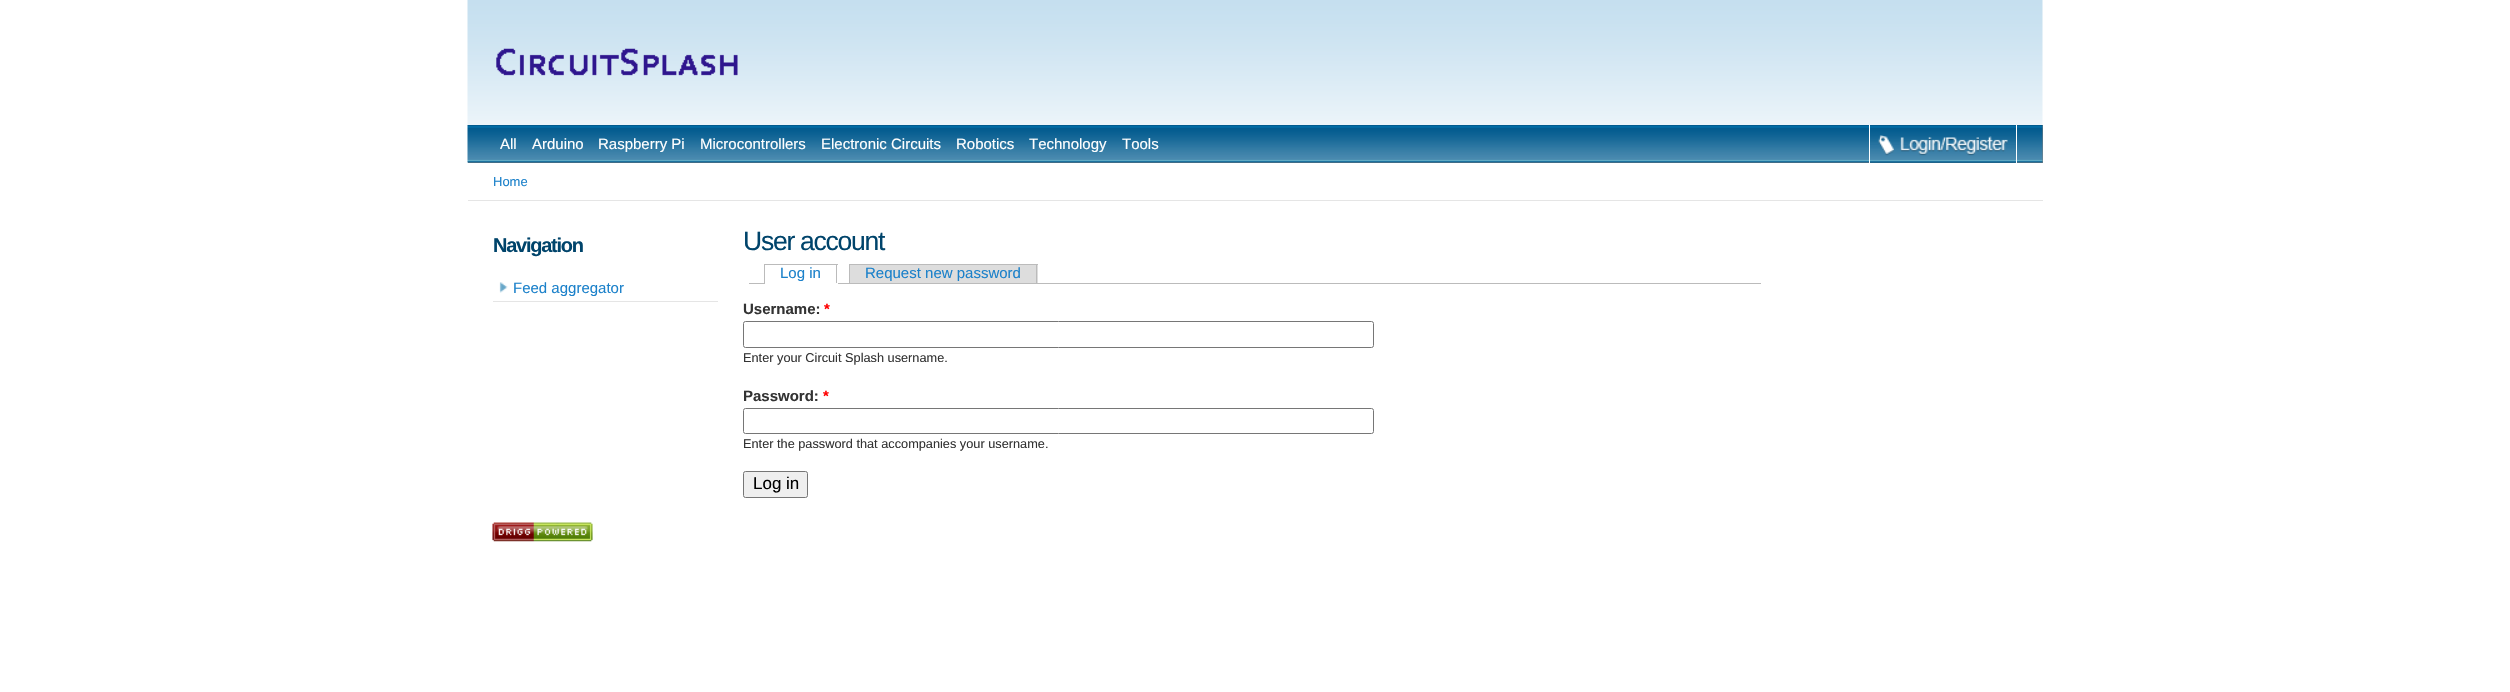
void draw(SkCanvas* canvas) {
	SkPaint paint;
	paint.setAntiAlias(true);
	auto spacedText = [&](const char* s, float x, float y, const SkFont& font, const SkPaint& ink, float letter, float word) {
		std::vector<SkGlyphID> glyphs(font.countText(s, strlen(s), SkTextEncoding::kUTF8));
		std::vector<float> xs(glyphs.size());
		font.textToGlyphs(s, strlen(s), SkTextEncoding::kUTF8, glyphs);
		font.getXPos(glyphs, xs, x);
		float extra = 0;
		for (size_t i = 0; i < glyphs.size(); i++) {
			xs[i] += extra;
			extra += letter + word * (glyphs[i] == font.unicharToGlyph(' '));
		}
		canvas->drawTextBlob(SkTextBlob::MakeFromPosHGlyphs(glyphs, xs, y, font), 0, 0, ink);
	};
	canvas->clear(0xffffffff);
	canvas->drawImageRect(SkImages::DeferredFromEncodedData(SkData::MakeFromFileName("img1.png")), SkRect::MakeXYWH(467, 0, 1576, 125), SkSamplingOptions());
	canvas->drawImageRect(SkImages::DeferredFromEncodedData(SkData::MakeFromFileName("img2.png")), SkRect::MakeXYWH(496, 48, 242, 28), SkSamplingOptions());
	paint.setColor(0xff808080);
	canvas->drawRect(SkRect::MakeXYWH(468, 125, 1575, 38), paint);
	canvas->drawImageRect(SkImages::DeferredFromEncodedData(SkData::MakeFromFileName("img3.png")), SkRect::MakeXYWH(467, 125, 1576, 38), SkSamplingOptions());
	SkFont f1(fontMgr->matchFamilyStyle("Liberation Sans", SkFontStyle::Normal()), 15);
	f1.setSubpixel(true);
	paint.setColor(0xffffffff);
	canvas->drawString("All", 500, 149, f1, paint);
	canvas->drawString("Arduino", 532, 149, f1, paint);
	canvas->drawString("Raspberry Pi", 598, 149, f1, paint);
	canvas->drawString("Microcontrollers", 700, 149, f1, paint);
	canvas->drawString("Electronic Circuits", 821, 149, f1, paint);
	canvas->drawString("Robotics", 956, 149, f1, paint);
	canvas->drawString("Technology", 1029, 149, f1, paint);
	canvas->drawString("Tools", 1122, 149, f1, paint);
	canvas->drawImageRect(SkImages::DeferredFromEncodedData(SkData::MakeFromFileName("img4.png")), SkRect::MakeXYWH(1870, 135, 146, 28), SkSamplingOptions());
	canvas->drawRect(SkRect::MakeXYWH(2016, 125, 1, 38), paint);
	canvas->drawRect(SkRect::MakeXYWH(1869, 125, 1, 38), paint);
	paint.setColor(0xffe5e5e5);
	canvas->drawRect(SkRect::MakeXYWH(468, 200, 1575, 1), paint);
	SkFont f2(fontMgr->matchFamilyStyle("Liberation Sans", SkFontStyle::Normal()), 13);
	f2.setSubpixel(true);
	paint.setColor(0xff1b81ca);
	canvas->drawString("Home", 493, 186, f2, paint);
	SkFont f3(fontMgr->matchFamilyStyle("Liberation Sans", SkFontStyle::Bold()), 20);
	f3.setSubpixel(true);
	paint.setColor(0xff00446b);
	spacedText("Navigation", 493, 252, f3, paint, -1.25, 0);
	canvas->drawImageRect(SkImages::DeferredFromEncodedData(SkData::MakeFromFileName("img5.png")), SkRect::MakeXYWH(499, 282, 9, 11), SkSamplingOptions());
	paint.setColor(0xffe5e5e5);
	canvas->drawRect(SkRect::MakeXYWH(493, 301, 225, 1), paint);
	paint.setColor(0xff1b81ca);
	canvas->drawString("Feed aggregator", 513, 293, f1, paint);
	SkFont f4(fontMgr->matchFamilyStyle("Liberation Sans", SkFontStyle::Normal()), 26.5);
	f4.setSubpixel(true);
	paint.setColor(0xff00446b);
	spacedText("User account", 743, 250, f4, paint, -1.25, 0);
	paint.setColor(0xffbbbbbb);
	canvas->drawRect(SkRect::MakeXYWH(749, 283, 1012, 1), paint);
	paint.setColor(0xff1b81ca);
	canvas->drawString("Log in", 780, 278, f1, paint);
	paint.setColor(0xffbbbbbb);
	canvas->drawRect(SkRect::MakeXYWH(764, 264, 74, 1), paint);
	canvas->drawRect(SkRect::MakeXYWH(836, 264, 1, 20), paint);
	paint.setColor(0xffffffff);
	canvas->drawRect(SkRect::MakeXYWH(764, 283, 74, 1), paint);
	paint.setColor(0xffbbbbbb);
	canvas->drawRect(SkRect::MakeXYWH(764, 264, 1, 20), paint);
	paint.setColor(0xffdddddd);
	canvas->drawRect(SkRect::MakeXYWH(850, 265, 188, 18), paint);
	paint.setColor(0xff1b81ca);
	canvas->drawString("Request new password", 865, 278, f1, paint);
	paint.setColor(0xffbbbbbb);
	canvas->drawRect(SkRect::MakeXYWH(849, 264, 189, 1), paint);
	canvas->drawRect(SkRect::MakeXYWH(1036, 264, 1, 19), paint);
	canvas->drawRect(SkRect::MakeXYWH(849, 264, 1, 19), paint);
	SkFont f5(fontMgr->matchFamilyStyle("Liberation Sans", SkFontStyle::Bold()), 15);
	f5.setSubpixel(true);
	paint.setColor(0xff333333);
	canvas->drawString("Username:", 743, 314, f5, paint);
	paint.setColor(0xffff0000);
	canvas->drawString("*", 824, 314, f5, paint);
	paint.setStroke(true);
	paint.setStrokeWidth(1);
	paint.setColor(0xff767676);
	canvas->drawRoundRect(SkRect::MakeXYWH(743.5, 321.5, 630, 26), 2, 2, paint);
	SkFont f6(fontMgr->matchFamilyStyle("Liberation Sans", SkFontStyle::Normal()), 12.75);
	f6.setSubpixel(true);
	paint.setStroke(false);
	paint.setColor(0xff333333);
	canvas->drawString("Enter your Circuit Splash username.", 743, 362, f6, paint);
	canvas->drawString("Password:", 743, 401, f5, paint);
	paint.setColor(0xffff0000);
	canvas->drawString("*", 823, 401, f5, paint);
	paint.setStroke(true);
	paint.setColor(0xff767676);
	canvas->drawRoundRect(SkRect::MakeXYWH(743.5, 408.5, 630, 25), 2, 2, paint);
	paint.setStroke(false);
	paint.setColor(0xff333333);
	canvas->drawString("Enter the password that accompanies your username.", 743, 448, f6, paint);
	paint.setColor(0xffefefef);
	canvas->drawRoundRect(SkRect::MakeXYWH(743.5, 471.5, 64, 26), 2, 2, paint);
	paint.setStroke(true);
	paint.setColor(0xff767676);
	canvas->drawRoundRect(SkRect::MakeXYWH(743.5, 471.5, 64, 26), 2, 2, paint);
	SkFont f7(fontMgr->matchFamilyStyle("Liberation Sans", SkFontStyle::Normal()), 17);
	f7.setSubpixel(true);
	paint.setStroke(false);
	paint.setColor(0xff000000);
	canvas->drawString("Log in", 753, 489, f7, paint);
	canvas->drawImageRect(SkImages::DeferredFromEncodedData(SkData::MakeFromFileName("img6.png")), SkRect::MakeXYWH(492, 522, 101, 20), SkSamplingOptions());
}
